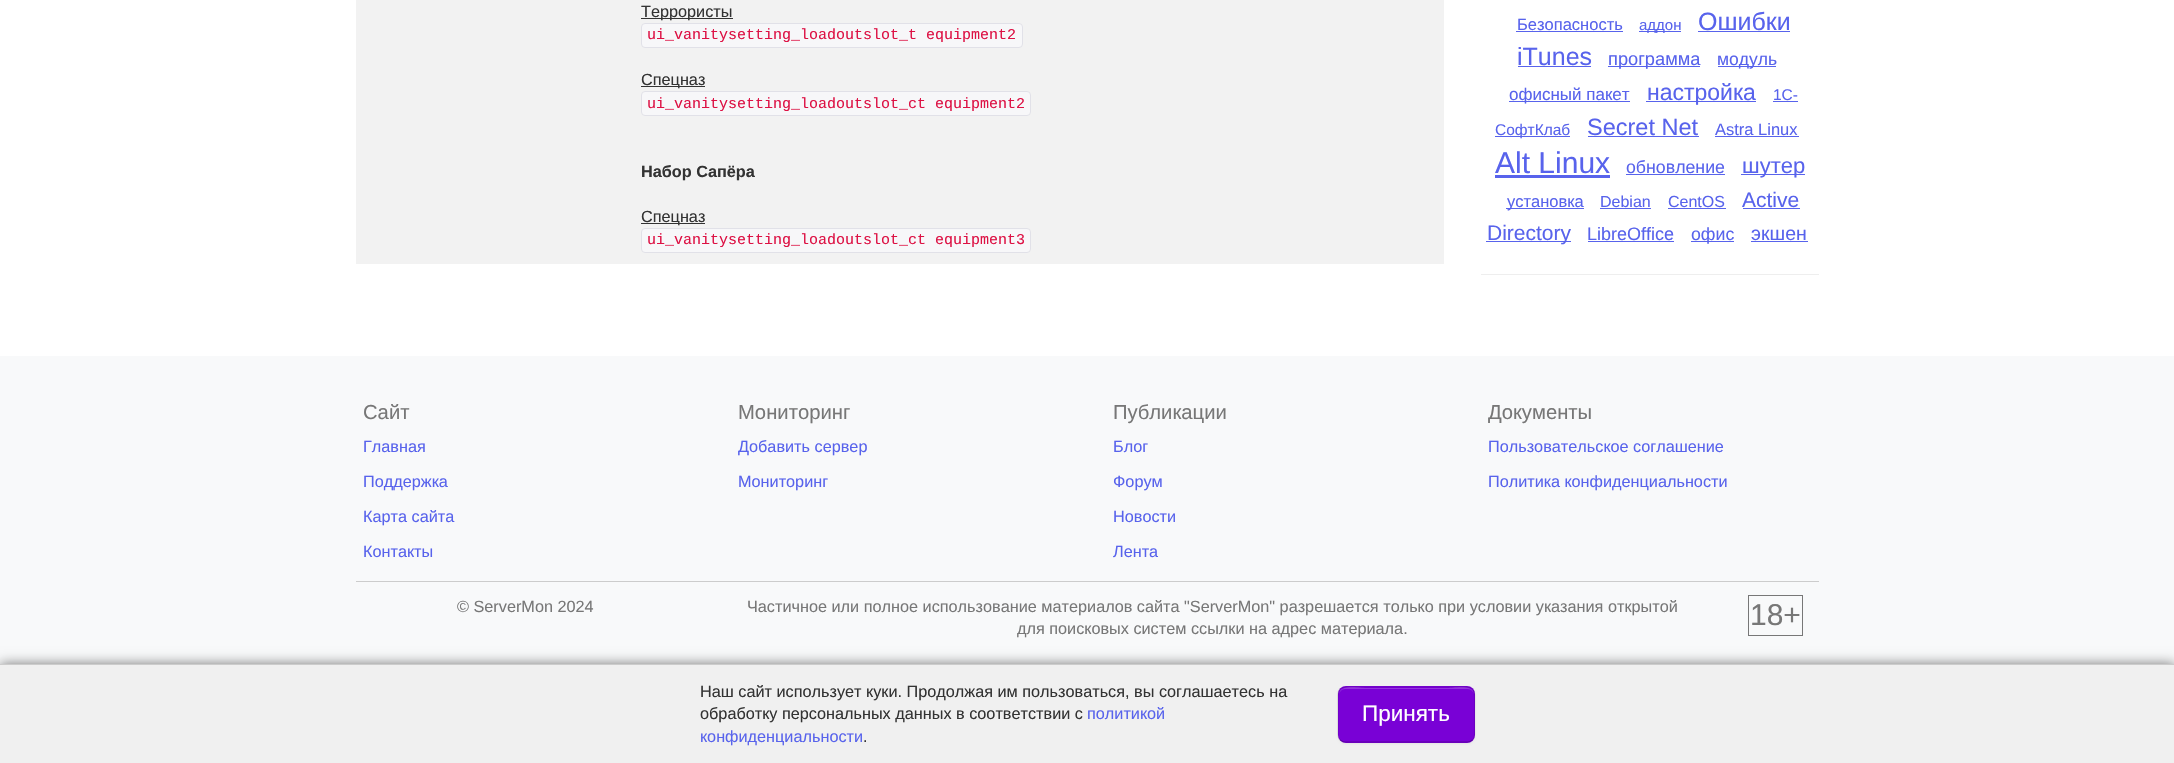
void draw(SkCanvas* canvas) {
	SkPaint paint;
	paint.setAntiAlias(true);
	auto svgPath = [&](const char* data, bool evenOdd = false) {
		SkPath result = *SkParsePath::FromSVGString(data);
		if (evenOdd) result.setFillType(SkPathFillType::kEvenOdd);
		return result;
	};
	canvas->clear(0xffffffff);
	paint.setColor(0xfff2f2f2);
	canvas->drawRect(SkRect::MakeXYWH(356, 0, 1088, 264), paint);
	paint.setColor(0xff333333);
	canvas->drawRect(SkRect::MakeXYWH(641, 18, 92, 1), paint);
	SkFont f1(fontMgr->matchFamilyStyle("Liberation Sans", SkFontStyle::Normal()), 16.25);
	f1.setSubpixel(true);
	canvas->drawString("Террористы", 641, 17, f1, paint);
	paint.setColor(0xfff7f7f9);
	canvas->drawRoundRect(SkRect::MakeXYWH(641.5, 23.5, 381, 24), 3.5, 3.5, paint);
	paint.setStroke(true);
	paint.setStrokeWidth(1);
	paint.setColor(0xffe1e1e8);
	canvas->drawRoundRect(SkRect::MakeXYWH(641.5, 23.5, 381, 24), 3.5, 3.5, paint);
	SkFont f2(fontMgr->matchFamilyStyle("Liberation Mono", SkFontStyle::Normal()), 15);
	f2.setSubpixel(true);
	paint.setStroke(false);
	paint.setColor(0xffdd1144);
	canvas->drawString("ui_vanitysetting_loadoutslot_t equipment2", 647, 39, f2, paint);
	paint.setColor(0xff333333);
	canvas->drawRect(SkRect::MakeXYWH(641, 86, 64, 1), paint);
	canvas->drawString("Спецназ", 641, 85, f1, paint);
	paint.setColor(0xfff7f7f9);
	canvas->drawRoundRect(SkRect::MakeXYWH(641.5, 91.5, 389, 24), 3.5, 3.5, paint);
	paint.setStroke(true);
	paint.setColor(0xffe1e1e8);
	canvas->drawRoundRect(SkRect::MakeXYWH(641.5, 91.5, 389, 24), 3.5, 3.5, paint);
	paint.setStroke(false);
	paint.setColor(0xffdd1144);
	canvas->drawString("ui_vanitysetting_loadoutslot_ct equipment2", 647, 108, f2, paint);
	SkFont f3(fontMgr->matchFamilyStyle("Liberation Sans", SkFontStyle::Bold()), 16.25);
	f3.setSubpixel(true);
	paint.setColor(0xff333333);
	canvas->drawString("Набор Сапёра", 641, 177, f3, paint);
	canvas->drawRect(SkRect::MakeXYWH(641, 223, 64, 1), paint);
	canvas->drawString("Спецназ", 641, 222, f1, paint);
	paint.setColor(0xfff7f7f9);
	canvas->drawRoundRect(SkRect::MakeXYWH(641.5, 228.5, 389, 24), 3.5, 3.5, paint);
	paint.setStroke(true);
	paint.setColor(0xffe1e1e8);
	canvas->drawRoundRect(SkRect::MakeXYWH(641.5, 228.5, 389, 24), 3.5, 3.5, paint);
	paint.setStroke(false);
	paint.setColor(0xffdd1144);
	canvas->drawString("ui_vanitysetting_loadoutslot_ct equipment3", 647, 244, f2, paint);
	SkFont f4(fontMgr->matchFamilyStyle("Liberation Sans", SkFontStyle::Normal()), 16.5);
	f4.setSubpixel(true);
	paint.setColor(0xff5863ec);
	canvas->drawString("Безопасность", 1517, 30, f4, paint);
	canvas->drawRect(SkRect::MakeXYWH(1516, 31, 107, 1), paint);
	canvas->drawRect(SkRect::MakeXYWH(1639, 31, 42, 1), paint);
	SkFont f5(fontMgr->matchFamilyStyle("Liberation Sans", SkFontStyle::Normal()), 15);
	f5.setSubpixel(true);
	canvas->drawString("аддон", 1639, 30, f5, paint);
	SkFont f6(fontMgr->matchFamilyStyle("Liberation Sans", SkFontStyle::Normal()), 25);
	f6.setSubpixel(true);
	canvas->drawString("Ошибки", 1698, 30, f6, paint);
	canvas->drawRect(SkRect::MakeXYWH(1698, 31, 92, 1), paint);
	canvas->drawString("iTunes", 1517, 65, f6, paint);
	canvas->drawRect(SkRect::MakeXYWH(1518, 66, 73, 1), paint);
	canvas->drawRect(SkRect::MakeXYWH(1608, 66, 92, 1), paint);
	SkFont f7(fontMgr->matchFamilyStyle("Liberation Sans", SkFontStyle::Normal()), 18.25);
	f7.setSubpixel(true);
	canvas->drawString("программа", 1608, 65, f7, paint);
	canvas->drawRect(SkRect::MakeXYWH(1718, 66, 58, 1), paint);
	SkFont f8(fontMgr->matchFamilyStyle("Liberation Sans", SkFontStyle::Normal()), 17.5);
	f8.setSubpixel(true);
	canvas->drawString("модуль", 1717, 65, f8, paint);
	canvas->drawRect(SkRect::MakeXYWH(1509, 101, 121, 1), paint);
	SkFont f9(fontMgr->matchFamilyStyle("Liberation Sans", SkFontStyle::Normal()), 17);
	f9.setSubpixel(true);
	canvas->drawString("офисный пакет", 1509, 100, f9, paint);
	canvas->drawRect(SkRect::MakeXYWH(1646, 101, 110, 1), paint);
	SkFont f10(fontMgr->matchFamilyStyle("Liberation Sans", SkFontStyle::Normal()), 23);
	f10.setSubpixel(true);
	canvas->drawString("настройка", 1647, 100, f10, paint);
	SkFont f11(fontMgr->matchFamilyStyle("Liberation Sans", SkFontStyle::Normal()), 15.5);
	f11.setSubpixel(true);
	canvas->drawString("1С-", 1773, 100, f11, paint);
	canvas->drawRect(SkRect::MakeXYWH(1773, 101, 25, 1), paint);
	canvas->drawRect(SkRect::MakeXYWH(1495, 136, 75, 1), paint);
	canvas->drawString("СофтКлаб", 1495, 135, f11, paint);
	SkFont f12(fontMgr->matchFamilyStyle("Liberation Sans", SkFontStyle::Normal()), 23.5);
	f12.setSubpixel(true);
	canvas->drawString("Secret Net", 1587, 135, f12, paint);
	canvas->drawRect(SkRect::MakeXYWH(1588, 136, 111, 1), paint);
	canvas->drawString("Astra Linux", 1715, 135, f4, paint);
	canvas->drawRect(SkRect::MakeXYWH(1715, 136, 84, 1), paint);
	SkFont f13(fontMgr->matchFamilyStyle("Liberation Sans", SkFontStyle::Normal()), 30);
	f13.setSubpixel(true);
	canvas->drawString("Alt Linux", 1495, 173, f13, paint);
	canvas->drawRect(SkRect::MakeXYWH(1495, 175, 115, 3), paint);
	SkFont f14(fontMgr->matchFamilyStyle("Liberation Sans", SkFontStyle::Normal()), 17.75);
	f14.setSubpixel(true);
	canvas->drawString("обновление", 1626, 173, f14, paint);
	canvas->drawRect(SkRect::MakeXYWH(1626, 174, 99, 1), paint);
	canvas->drawRect(SkRect::MakeXYWH(1741, 174, 64, 1), paint);
	SkFont f15(fontMgr->matchFamilyStyle("Liberation Sans", SkFontStyle::Normal()), 22);
	f15.setSubpixel(true);
	canvas->drawString("шутер", 1742, 173, f15, paint);
	canvas->drawRect(SkRect::MakeXYWH(1506, 208, 78, 1), paint);
	canvas->drawString("установка", 1507, 207, f4, paint);
	SkFont f16(fontMgr->matchFamilyStyle("Liberation Sans", SkFontStyle::Normal()), 16);
	f16.setSubpixel(true);
	canvas->drawString("Debian", 1600, 207, f16, paint);
	canvas->drawRect(SkRect::MakeXYWH(1600, 208, 51, 1), paint);
	canvas->drawString("CentOS", 1668, 207, f16, paint);
	canvas->drawRect(SkRect::MakeXYWH(1668, 208, 58, 1), paint);
	SkFont f17(fontMgr->matchFamilyStyle("Liberation Sans", SkFontStyle::Normal()), 21);
	f17.setSubpixel(true);
	canvas->drawString("Active", 1742, 207, f17, paint);
	canvas->drawRect(SkRect::MakeXYWH(1743, 208, 57, 1), paint);
	canvas->drawRect(SkRect::MakeXYWH(1486, 241, 85, 1), paint);
	canvas->drawString("Directory", 1487, 240, f17, paint);
	SkFont f18(fontMgr->matchFamilyStyle("Liberation Sans", SkFontStyle::Normal()), 18);
	f18.setSubpixel(true);
	canvas->drawString("LibreOffice", 1587, 240, f18, paint);
	canvas->drawRect(SkRect::MakeXYWH(1588, 241, 86, 1), paint);
	canvas->drawRect(SkRect::MakeXYWH(1691, 241, 43, 1), paint);
	canvas->drawString("офис", 1691, 240, f14, paint);
	SkFont f19(fontMgr->matchFamilyStyle("Liberation Sans", SkFontStyle::Normal()), 19.5);
	f19.setSubpixel(true);
	canvas->drawString("экшен", 1751, 240, f19, paint);
	canvas->drawRect(SkRect::MakeXYWH(1751, 241, 57, 1), paint);
	paint.setColor(0xffeeeeee);
	canvas->drawRect(SkRect::MakeXYWH(1481, 274, 338, 1), paint);
	paint.setColor(0xfff8f9fa);
	canvas->drawRect(SkRect::MakeXYWH(0, 356, 2174, 308), paint);
	SkFont f20(fontMgr->matchFamilyStyle("Liberation Sans", SkFontStyle::Normal()), 20.25);
	f20.setSubpixel(true);
	paint.setColor(0xff777777);
	canvas->drawString("Сайт", 363, 419, f20, paint);
	paint.setColor(0xff5863ec);
	canvas->drawString("Главная", 363, 452, f1, paint);
	canvas->drawString("Поддержка", 363, 487, f1, paint);
	canvas->drawString("Карта сайта", 363, 522, f1, paint);
	canvas->drawString("Контакты", 363, 557, f1, paint);
	paint.setColor(0xff777777);
	canvas->drawString("Мониторинг", 738, 419, f20, paint);
	paint.setColor(0xff5863ec);
	canvas->drawString("Добавить сервер", 738, 452, f1, paint);
	canvas->drawString("Мониторинг", 738, 487, f1, paint);
	paint.setColor(0xff777777);
	canvas->drawString("Публикации", 1113, 419, f20, paint);
	paint.setColor(0xff5863ec);
	canvas->drawString("Блог", 1113, 452, f1, paint);
	canvas->drawString("Форум", 1113, 487, f1, paint);
	canvas->drawString("Новости", 1113, 522, f1, paint);
	canvas->drawString("Лента", 1113, 557, f1, paint);
	paint.setColor(0xff777777);
	canvas->drawString("Документы", 1488, 419, f20, paint);
	paint.setColor(0xff5863ec);
	canvas->drawString("Пользовательское соглашение", 1488, 452, f1, paint);
	canvas->drawString("Политика конфиденциальности", 1488, 487, f1, paint);
	paint.setColor(0xffcccccc);
	canvas->drawRect(SkRect::MakeXYWH(356, 581, 1463, 1), paint);
	paint.setColor(0xff777777);
	canvas->drawString("© ServerMon 2024", 457, 612, f1, paint);
	canvas->drawString("Частичное или полное использование материалов сайта \"ServerMon\" разрешается только при условии указания открытой", 747, 612, f1, paint);
	canvas->drawString("для поисковых систем ссылки на адрес материала.", 1017, 634, f1, paint);
	paint.setStroke(true);
	canvas->drawRect(SkRect::MakeXYWH(1748.5, 595.5, 54, 40), paint);
	paint.setStroke(false);
	canvas->drawString("18+", 1750, 625, f13, paint);
	paint.setColor(0x87000000);
	paint.setMaskFilter(SkMaskFilter::MakeBlur(kNormal_SkBlurStyle, 6));
	canvas->drawRect(SkRect::MakeXYWH(0, 664, 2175, 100), paint);
	paint.setMaskFilter(nullptr);
	paint.setColor(0xfff0f0f0);
	canvas->drawRect(SkRect::MakeXYWH(0, 665, 2174, 98), paint);
	paint.setColor(0xffcccccc);
	canvas->drawRect(SkRect::MakeXYWH(0, 664, 2174, 1), paint);
	paint.setColor(0xff333333);
	canvas->drawString("Наш сайт использует куки. Продолжая им пользоваться, вы соглашаетесь на", 700, 697, f1, paint);
	canvas->drawString("обработку персональных данных в соответствии с", 700, 719, f1, paint);
	paint.setColor(0xff5863ec);
	canvas->drawString("политикой", 1087, 719, f1, paint);
	canvas->drawString("конфиденциальности", 700, 742, f1, paint);
	paint.setColor(0xff333333);
	canvas->drawString(".", 863, 742, f1, paint);
	paint.setColor(0x0d000000);
	paint.setMaskFilter(SkMaskFilter::MakeBlur(kNormal_SkBlurStyle, 1));
	canvas->drawRoundRect(SkRect::MakeXYWH(1338, 688, 137, 56), 8, 8, paint);
	paint.setMaskFilter(nullptr);
	paint.setColor(0xff7901d6);
	canvas->drawRoundRect(SkRect::MakeXYWH(1338, 686, 137, 57), 8, 8, paint);
	paint.setColor(0xff9434de);
	canvas->drawPath(svgPath("M1345 689H1468C1471 689 1474 692 1474 695C1474 683 1453 688 1448 688H1366C1360 688 1339 683 1339 695C1339 692 1342 689 1345 689Z"), paint);
	paint.setStroke(true);
	paint.setStrokeWidth(1.2);
	paint.setColor(0x40000000);
	canvas->drawPath(svgPath("M1472.5 740C1471 741 1469.5 742 1467.5 742H1345C1343 742 1341.5 741 1340 740"), paint);
	paint.setColor(0x1a000000);
	canvas->drawPath(svgPath("M1340 740C1337 737 1338 732 1338 728V714.5C1338 683.5 1333.5 687 1365.5 687H1447C1479 687 1474.5 683.5 1474.5 714.5V728C1474.5 732 1475.5 737 1472.5 740"), paint);
	SkFont f21(fontMgr->matchFamilyStyle("Liberation Sans", SkFontStyle::Normal()), 22.5);
	f21.setSubpixel(true);
	paint.setStroke(false);
	paint.setColor(0xffffffff);
	canvas->drawString("Принять", 1362, 721, f21, paint);
}
